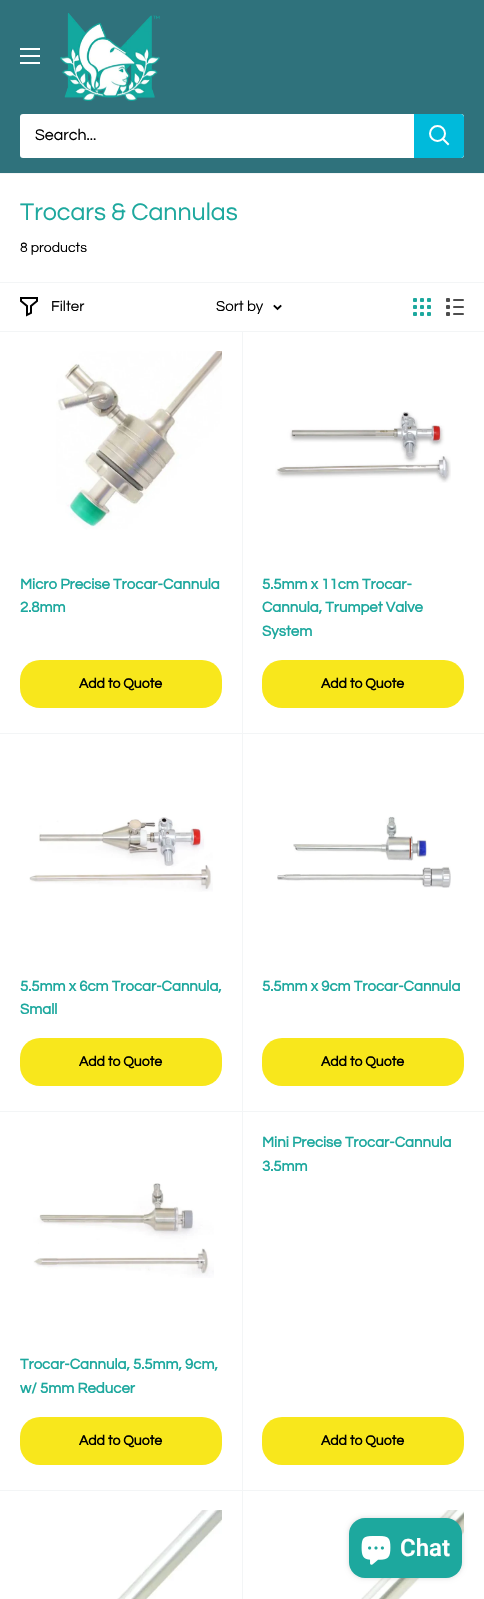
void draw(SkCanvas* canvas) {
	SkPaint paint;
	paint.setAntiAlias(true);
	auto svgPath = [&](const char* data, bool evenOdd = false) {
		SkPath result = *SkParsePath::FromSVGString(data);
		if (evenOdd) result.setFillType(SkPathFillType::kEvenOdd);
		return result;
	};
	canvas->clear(0xffffffff);
	paint.setColor(0xff2f727c);
	canvas->drawRect(SkRect::MakeXYWH(0, 0, 484, 173), paint);
	canvas->drawImageRect(SkImages::DeferredFromEncodedData(SkData::MakeFromFileName("img1.png")), SkRect::MakeXYWH(20, 48, 20, 16), SkSamplingOptions());
	canvas->drawImageRect(SkImages::DeferredFromEncodedData(SkData::MakeFromFileName("img2.png")), SkRect::MakeXYWH(60, 13, 100, 88), SkSamplingOptions());
	paint.setColor(0xffffffff);
	canvas->drawRoundRect(SkRect::MakeXYWH(20, 114, 444, 44), 3, 3, paint);
	SkFont f1(fontMgr->matchFamilyStyle("Questrial", SkFontStyle::Normal()), 16);
	f1.setSubpixel(true);
	paint.setColor(0xff000000);
	canvas->drawString("Search...", 35, 140, f1, paint);
	paint.setColor(0xff00badb);
	canvas->drawPath(svgPath("M414 114H461C462.5 114 464 115.5 464 117V155C464 156.5 462.5 158 461 158H414Z"), paint);
	paint.setStroke(true);
	paint.setStrokeWidth(2);
	paint.setStrokeCap(SkPaint::kSquare_Cap);
	paint.setColor(0xffffffff);
	canvas->drawPath(svgPath("M448 144L443 139"), paint);
	paint.setStrokeCap(SkPaint::kButt_Cap);
	canvas->drawCircle(437.5, 133.5, 7.5, paint);
	paint.setStroke(false);
	paint.setColor(0xfff3f5f6);
	canvas->drawRect(SkRect::MakeXYWH(0, 173, 484, 1), paint);
	SkFont f2(fontMgr->matchFamilyStyle("Questrial", SkFontStyle::Normal()), 25);
	f2.setSubpixel(true);
	paint.setColor(0xff1da89e);
	canvas->drawString("Trocars & Cannulas", 20, 220, f2, paint);
	SkFont f3(fontMgr->matchFamilyStyle("Questrial", SkFontStyle::Normal()), 14);
	f3.setSubpixel(true);
	paint.setColor(0xff000000);
	canvas->drawString("8 products", 20, 252, f3, paint);
	paint.setColor(0xfff3f5f6);
	canvas->drawRect(SkRect::MakeXYWH(0, 282, 484, 1), paint);
	canvas->drawRect(SkRect::MakeXYWH(0, 733, 484, 1), paint);
	canvas->drawRect(SkRect::MakeXYWH(242, 331, 1, 780), paint);
	canvas->drawRect(SkRect::MakeXYWH(0, 331, 484, 1), paint);
	paint.setStroke(true);
	paint.setStrokeCap(SkPaint::kSquare_Cap);
	paint.setColor(0xff000000);
	canvas->drawPath(svgPath("M37 301L31 306V313L27 315V306L21 301V298H37Z"), paint);
	SkFont f4(fontMgr->matchFamilyStyle("Questrial", SkFontStyle::Normal()), 15);
	f4.setSubpixel(true);
	paint.setStroke(false);
	canvas->drawString("Filter", 51, 311, f4, paint);
	canvas->drawString("Sort by", 216, 311, f4, paint);
	paint.setStroke(true);
	paint.setStrokeWidth(1.9);
	canvas->drawPath(svgPath("M280.5 306L277.5 309L274.5 306"), paint);
	canvas->drawImageRect(SkImages::DeferredFromEncodedData(SkData::MakeFromFileName("img3.png")), SkRect::MakeXYWH(413, 298, 18, 18), SkSamplingOptions());
	canvas->drawImageRect(SkImages::DeferredFromEncodedData(SkData::MakeFromFileName("img4.png")), SkRect::MakeXYWH(446, 298, 18, 18), SkSamplingOptions());
	canvas->drawImageRect(SkImages::DeferredFromEncodedData(SkData::MakeFromFileName("img5.png")), SkRect::MakeXYWH(56, 351, 166, 179), SkSamplingOptions());
	SkFont f5(fontMgr->matchFamilyStyle("Questrial", SkFontStyle::Bold()), 15);
	f5.setSubpixel(true);
	paint.setStroke(false);
	paint.setColor(0xff1da89e);
	canvas->drawString("Micro Precise Trocar-Cannula", 20, 589, f5, paint);
	canvas->drawString("2.8mm", 20, 612, f5, paint);
	paint.setColor(0xfff8e71c);
	canvas->drawRoundRect(SkRect::MakeXYWH(20, 660, 202, 48), 20, 20, paint);
	SkFont f6(fontMgr->matchFamilyStyle("Questrial", SkFontStyle::Bold()), 14);
	f6.setSubpixel(true);
	paint.setColor(0xff000000);
	canvas->drawString("Add to Quote", 79, 688, f6, paint);
	canvas->drawImageRect(SkImages::DeferredFromEncodedData(SkData::MakeFromFileName("img6.png")), SkRect::MakeXYWH(275, 411, 176, 72), SkSamplingOptions());
	paint.setColor(0xff1da89e);
	canvas->drawString("5.5mm x 11cm Trocar-", 262, 589, f5, paint);
	canvas->drawString("Cannula, Trumpet Valve", 262, 612, f5, paint);
	canvas->drawString("System", 262, 636, f5, paint);
	paint.setColor(0xfff8e71c);
	canvas->drawRoundRect(SkRect::MakeXYWH(262, 660, 202, 48), 20, 20, paint);
	paint.setColor(0xff000000);
	canvas->drawString("Add to Quote", 321, 688, f6, paint);
	canvas->drawImageRect(SkImages::DeferredFromEncodedData(SkData::MakeFromFileName("img7.png")), SkRect::MakeXYWH(29, 817, 184, 75), SkSamplingOptions());
	paint.setColor(0xff1da89e);
	canvas->drawString("5.5mm x 6cm Trocar-Cannula,", 20, 991, f5, paint);
	canvas->drawString("Small", 20, 1014, f5, paint);
	paint.setColor(0xfff8e71c);
	canvas->drawRoundRect(SkRect::MakeXYWH(20, 1038, 202, 48), 20, 20, paint);
	paint.setColor(0xff000000);
	canvas->drawString("Add to Quote", 79, 1066, f6, paint);
	paint.setColor(0xfff3f5f6);
	canvas->drawRect(SkRect::MakeXYWH(0, 1111, 484, 1), paint);
	canvas->drawImageRect(SkImages::DeferredFromEncodedData(SkData::MakeFromFileName("img8.png")), SkRect::MakeXYWH(277, 816, 174, 72), SkSamplingOptions());
	paint.setColor(0xff1da89e);
	canvas->drawString("5.5mm x 9cm Trocar-Cannula", 262, 991, f5, paint);
	paint.setColor(0xfff8e71c);
	canvas->drawRoundRect(SkRect::MakeXYWH(262, 1038, 202, 48), 20, 20, paint);
	paint.setColor(0xff000000);
	canvas->drawString("Add to Quote", 321, 1066, f6, paint);
	paint.setColor(0xfff3f5f6);
	canvas->drawRect(SkRect::MakeXYWH(0, 1490, 484, 1), paint);
	canvas->drawRect(SkRect::MakeXYWH(242, 1111, 1, 488), paint);
	canvas->drawImageRect(SkImages::DeferredFromEncodedData(SkData::MakeFromFileName("img9.png")), SkRect::MakeXYWH(33, 1183, 181, 95), SkSamplingOptions());
	paint.setColor(0xff1da89e);
	canvas->drawString("Trocar-Cannula, 5.5mm, 9cm,", 20, 1369, f5, paint);
	canvas->drawString("w/ 5mm Reducer", 20, 1393, f5, paint);
	paint.setColor(0xfff8e71c);
	canvas->drawRoundRect(SkRect::MakeXYWH(20, 1417, 202, 48), 20, 20, paint);
	paint.setColor(0xff000000);
	canvas->drawString("Add to Quote", 79, 1445, f6, paint);
	paint.setColor(0xff1da89e);
	canvas->drawString("Mini Precise Trocar-Cannula", 262, 1147, f5, paint);
	canvas->drawString("3.5mm", 262, 1171, f5, paint);
	paint.setColor(0xfff8e71c);
	canvas->drawRoundRect(SkRect::MakeXYWH(262, 1417, 202, 48), 20, 20, paint);
	paint.setColor(0xff000000);
	canvas->drawString("Add to Quote", 321, 1445, f6, paint);
	canvas->drawImageRect(SkImages::DeferredFromEncodedData(SkData::MakeFromFileName("img10.png")), SkRect::MakeXYWH(117, 1510, 105, 89), SkSamplingOptions());
	canvas->drawImageRect(SkImages::DeferredFromEncodedData(SkData::MakeFromFileName("img11.png")), SkRect::MakeXYWH(361, 1510, 103, 89), SkSamplingOptions());
	paint.setColor(0x26000000);
	paint.setMaskFilter(SkMaskFilter::MakeBlur(kNormal_SkBlurStyle, 2.5));
	canvas->drawRoundRect(SkRect::MakeXYWH(349, 1518, 113, 60), 16, 16, paint);
	paint.setMaskFilter(nullptr);
	paint.setColor(0xff1da89e);
	canvas->drawRoundRect(SkRect::MakeXYWH(349, 1518, 113, 60), 16, 16, paint);
	canvas->drawImageRect(SkImages::DeferredFromEncodedData(SkData::MakeFromFileName("img12.png")), SkRect::MakeXYWH(361, 1536, 30, 29), SkSamplingOptions());
	SkFont f7(fontMgr->matchFamilyStyle("Roboto", SkFontStyle(600, SkFontStyle::kNormal_Width, SkFontStyle::kUpright_Slant)), 24);
	f7.setSubpixel(true);
	paint.setColor(0xffffffff);
	canvas->drawString("Chat", 400, 1556, f7, paint);
}
